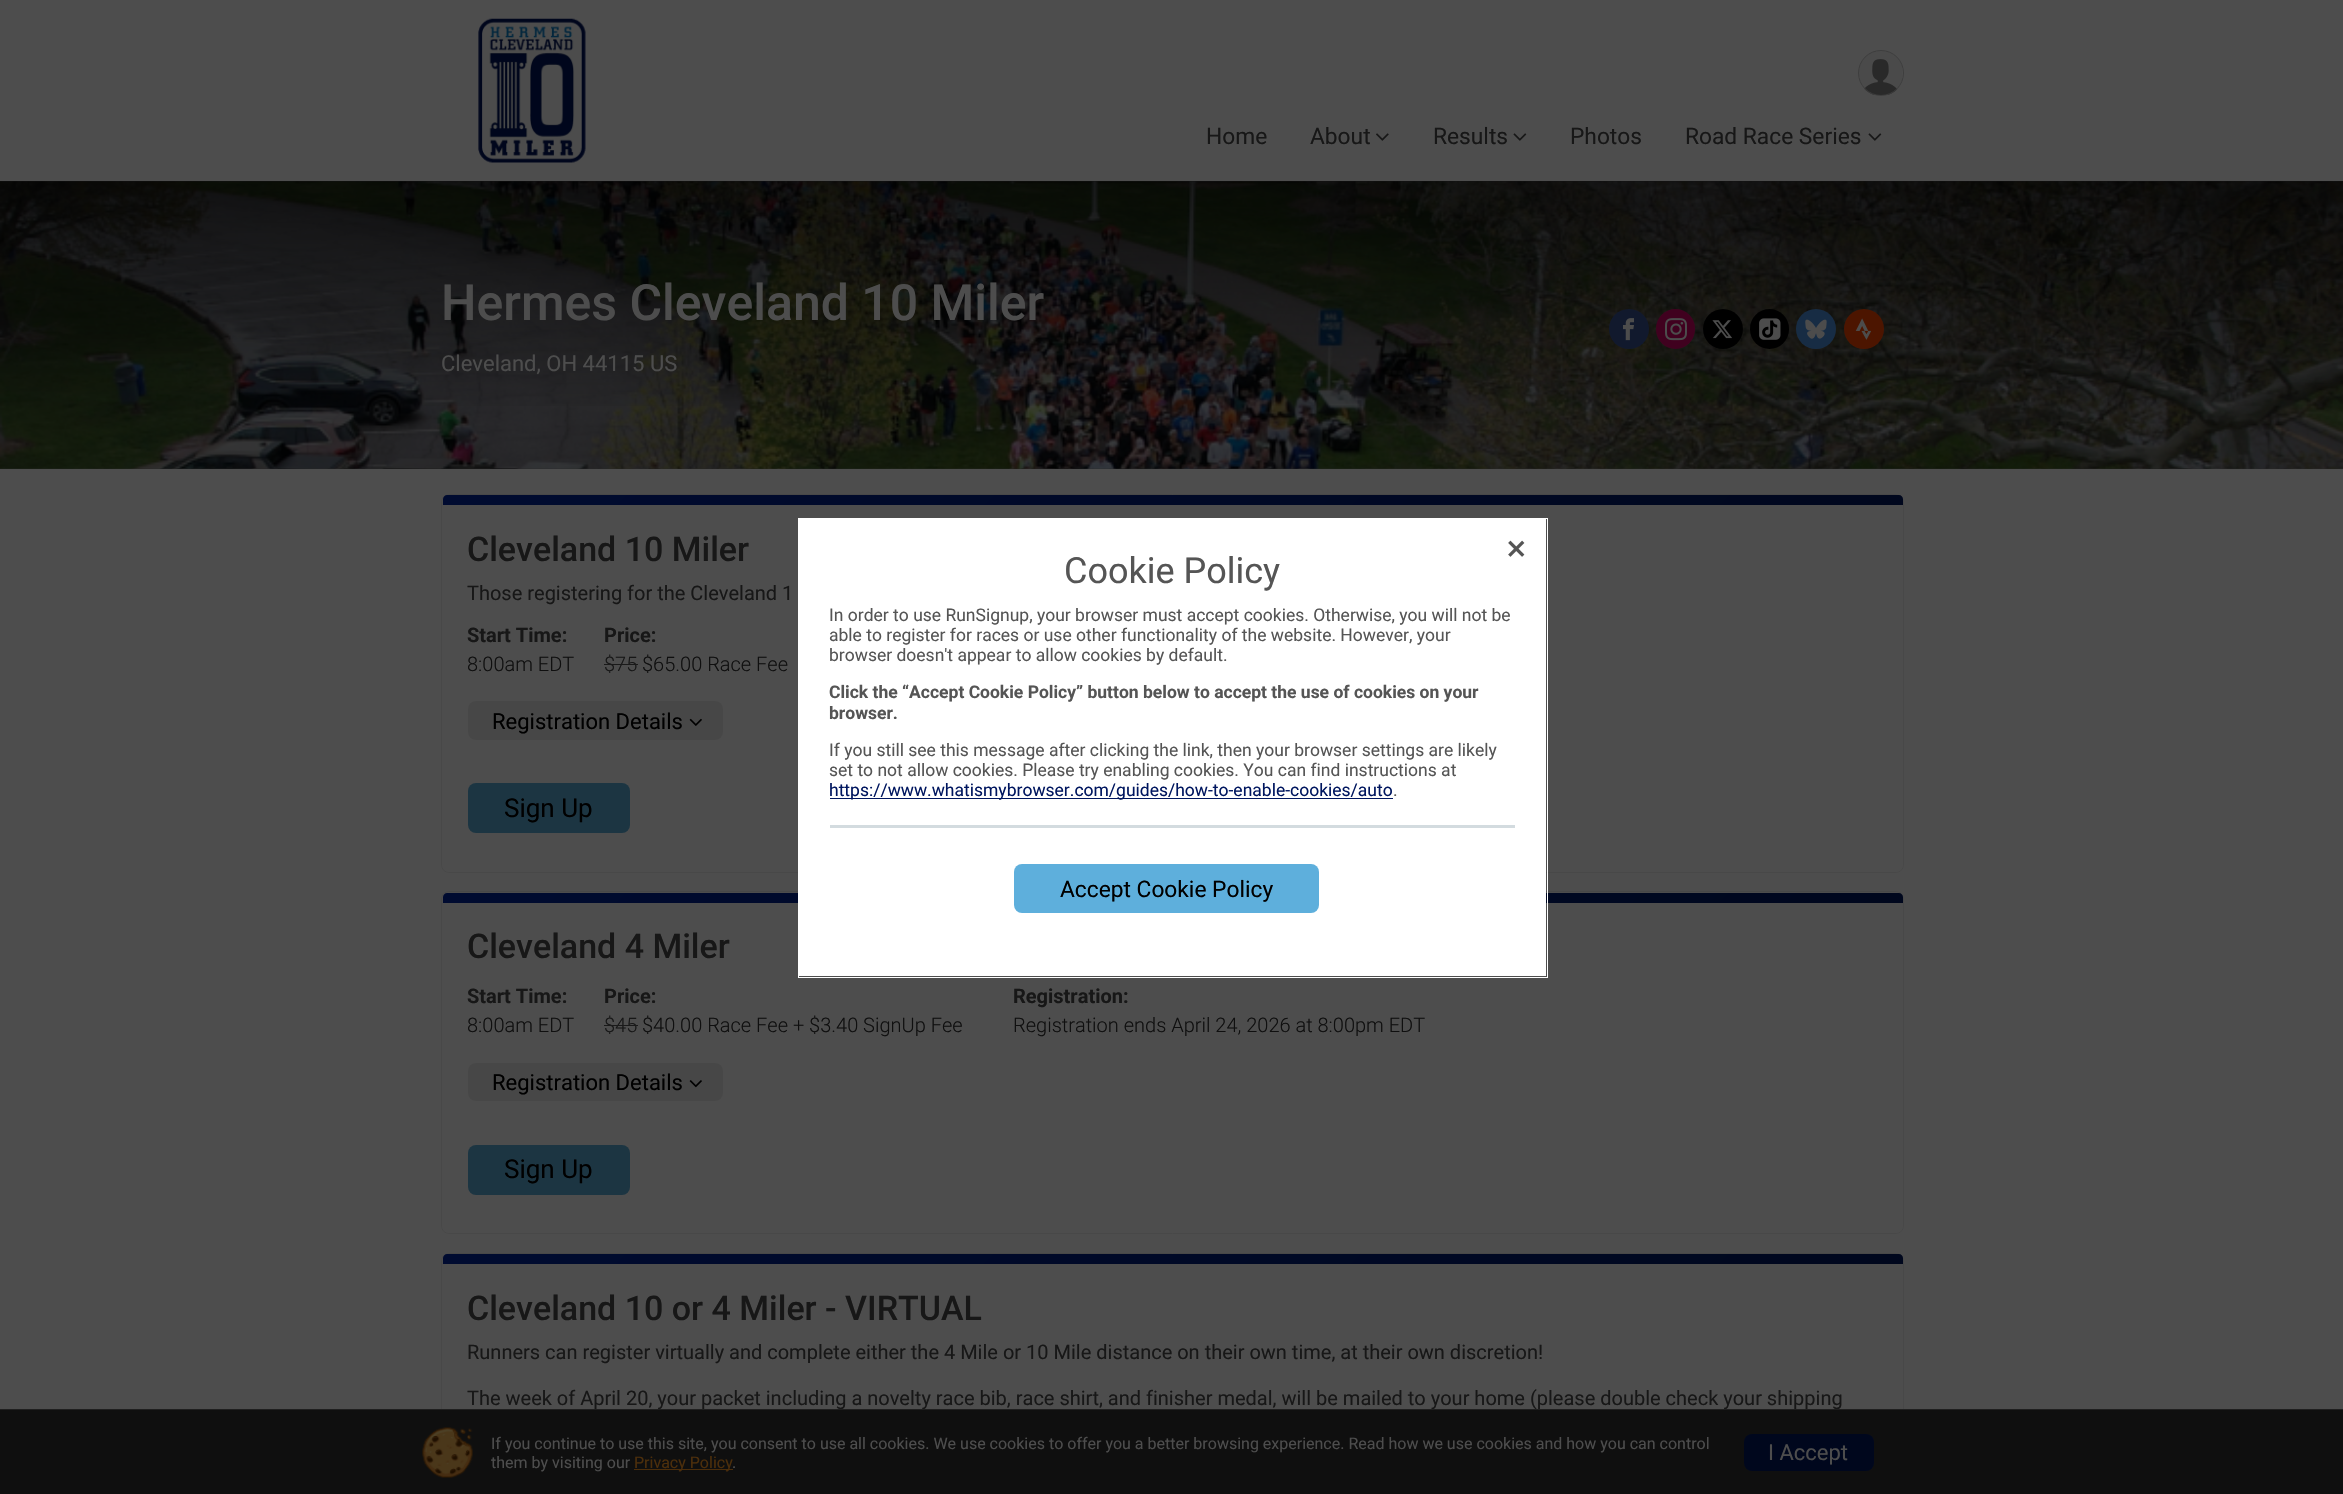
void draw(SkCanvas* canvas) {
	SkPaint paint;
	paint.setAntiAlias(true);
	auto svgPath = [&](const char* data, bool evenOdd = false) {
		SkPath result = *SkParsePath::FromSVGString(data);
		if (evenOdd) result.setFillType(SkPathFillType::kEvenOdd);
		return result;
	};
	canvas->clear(0xff4d4d4d);
	canvas->drawImageRect(SkImages::DeferredFromEncodedData(SkData::MakeFromFileName("img1.png")), SkRect::MakeXYWH(478, 18, 108, 145), SkSamplingOptions());
	canvas->drawImageRect(SkImages::DeferredFromEncodedData(SkData::MakeFromFileName("img2.png")), SkRect::MakeXYWH(1859, 51, 43, 44), SkSamplingOptions());
	paint.setStroke(true);
	paint.setStrokeWidth(1);
	paint.setColor(0xff3d3d3d);
	canvas->drawCircle(1881, 73, 22.5, paint);
	SkFont f1(fontMgr->matchFamilyStyle("Roboto", SkFontStyle::Normal()), 22.75);
	f1.setSubpixel(true);
	paint.setStroke(false);
	paint.setColor(0xff171717);
	canvas->drawString("Home", 1206, 144, f1, paint);
	canvas->drawString("About", 1310, 144, f1, paint);
	canvas->drawImageRect(SkImages::DeferredFromEncodedData(SkData::MakeFromFileName("img3.png")), SkRect::MakeXYWH(1376, 133, 13, 8), SkSamplingOptions());
	canvas->drawString("Results", 1433, 144, f1, paint);
	canvas->drawImageRect(SkImages::DeferredFromEncodedData(SkData::MakeFromFileName("img4.png")), SkRect::MakeXYWH(1513, 133, 14, 8), SkSamplingOptions());
	canvas->drawString("Photos", 1570, 144, f1, paint);
	canvas->drawString("Road Race Series", 1685, 144, f1, paint);
	canvas->drawImageRect(SkImages::DeferredFromEncodedData(SkData::MakeFromFileName("img4.png")), SkRect::MakeXYWH(1868, 133, 14, 8), SkSamplingOptions());
	paint.setColor(0xff252525);
	canvas->drawRect(SkRect::MakeXYWH(0, 181, 2343, 288), paint);
	canvas->drawImageRect(SkImages::DeferredFromEncodedData(SkData::MakeFromFileName("img5.png")), SkRect::MakeXYWH(0, 181, 2343, 288), SkSamplingOptions());
	{
		const SkColor colors[] = {0xa6000000, 0x00000000};
		const float stops[] = {0, 1};
		const SkPoint ends[] = {{1172, 139}, {1172, 426}};
		paint.setShader(SkGradientShader::MakeLinear(ends, colors, stops, 2, SkTileMode::kClamp));
		paint.setAlpha(255);
	}
	canvas->drawRect(SkRect::MakeXYWH(0, 181, 2343, 225), paint);
	SkFont f2(fontMgr->matchFamilyStyle("Roboto", SkFontStyle(500, SkFontStyle::kNormal_Width, SkFontStyle::kUpright_Slant)), 50);
	f2.setSubpixel(true);
	paint.setShader(nullptr);
	paint.setColor(0xff4d4d4d);
	canvas->drawString("Hermes Cleveland 10 Miler", 441, 320, f2, paint);
	SkFont f3(fontMgr->matchFamilyStyle("Roboto", SkFontStyle::Normal()), 22);
	f3.setSubpixel(true);
	canvas->drawString("Cleveland, OH 44115 US", 441, 371, f3, paint);
	paint.setColor(0xff11192d);
	canvas->drawCircle(1629, 329, 20, paint);
	canvas->drawImageRect(SkImages::DeferredFromEncodedData(SkData::MakeFromFileName("img6.png")), SkRect::MakeXYWH(1623, 318, 11, 23), SkSamplingOptions());
	paint.setColor(0xff40011f);
	canvas->drawRoundRect(SkRect::MakeXYWH(1656, 309, 39, 40), 19.5, 19.5, paint);
	canvas->drawImageRect(SkImages::DeferredFromEncodedData(SkData::MakeFromFileName("img7.png")), SkRect::MakeXYWH(1665, 318, 22, 23), SkSamplingOptions());
	paint.setColor(0xff000000);
	canvas->drawCircle(1723, 329, 20, paint);
	canvas->drawImageRect(SkImages::DeferredFromEncodedData(SkData::MakeFromFileName("img8.png")), SkRect::MakeXYWH(1712, 320, 20, 19), SkSamplingOptions());
	canvas->drawRoundRect(SkRect::MakeXYWH(1750, 309, 39, 40), 19.5, 19.5, paint);
	canvas->drawImageRect(SkImages::DeferredFromEncodedData(SkData::MakeFromFileName("img9.png")), SkRect::MakeXYWH(1759, 318, 22, 22), SkSamplingOptions());
	paint.setColor(0xff172c44);
	canvas->drawCircle(1816, 329, 20, paint);
	canvas->drawImageRect(SkImages::DeferredFromEncodedData(SkData::MakeFromFileName("img10.png")), SkRect::MakeXYWH(1805, 319, 22, 20), SkSamplingOptions());
	paint.setColor(0xff4c1500);
	canvas->drawCircle(1864, 329, 20, paint);
	canvas->drawImageRect(SkImages::DeferredFromEncodedData(SkData::MakeFromFileName("img11.png")), SkRect::MakeXYWH(1855, 318, 16, 22), SkSamplingOptions());
	paint.setStroke(true);
	paint.setColor(0xff484848);
	canvas->drawRoundRect(SkRect::MakeXYWH(441.5, 494.5, 1462, 378), 7.5, 7.5, paint);
	paint.setStroke(false);
	{
		const SkColor colors[] = {0xff00071d, 0xff000b30};
		const float stops[] = {0, 1};
		const SkPoint ends[] = {{1540, 868}, {805, 133}};
		paint.setShader(SkGradientShader::MakeLinear(ends, colors, stops, 2, SkTileMode::kClamp));
		paint.setAlpha(255);
	}
	canvas->drawPath(svgPath("M447 495H1899C1901 495 1903 497 1903 499V505H443V499C443 497 445 495 447 495Z"), paint);
	SkFont f4(fontMgr->matchFamilyStyle("Roboto", SkFontStyle(500, SkFontStyle::kNormal_Width, SkFontStyle::kUpright_Slant)), 34);
	f4.setSubpixel(true);
	paint.setShader(nullptr);
	paint.setColor(0xff171717);
	canvas->drawString("Cleveland 10 Miler", 467, 561, f4, paint);
	SkFont f5(fontMgr->matchFamilyStyle("Roboto", SkFontStyle::Normal()), 20);
	f5.setSubpixel(true);
	canvas->drawString("Those registering for the Cleveland 1", 467, 600, f5, paint);
	SkFont f6(fontMgr->matchFamilyStyle("Roboto", SkFontStyle::Bold()), 20);
	f6.setSubpixel(true);
	canvas->drawString("Start Time:", 467, 642, f6, paint);
	SkFont f7(fontMgr->matchFamilyStyle("Roboto", SkFontStyle(300, SkFontStyle::kNormal_Width, SkFontStyle::kUpright_Slant)), 20);
	f7.setSubpixel(true);
	paint.setColor(0xff0f0f0f);
	canvas->drawString("8:00am EDT", 467, 671, f7, paint);
	paint.setColor(0xff171717);
	canvas->drawString("Price:", 604, 642, f6, paint);
	canvas->drawString("$75", 604, 671, f7, paint);
	paint.setColor(0xff1a1a1a);
	canvas->drawRect(SkRect::MakeXYWH(604, 664, 34, 1), paint);
	paint.setColor(0xff0f0f0f);
	canvas->drawString("$65.00 Race Fee", 642, 671, f7, paint);
	paint.setColor(0xff474747);
	canvas->drawRoundRect(SkRect::MakeXYWH(468, 701, 255, 39), 8, 8, paint);
	paint.setColor(0xff000000);
	canvas->drawString("Registration Details", 492, 729, f3, paint);
	canvas->drawImageRect(SkImages::DeferredFromEncodedData(SkData::MakeFromFileName("img12.png")), SkRect::MakeXYWH(689, 718, 13, 8), SkSamplingOptions());
	paint.setColor(0xff1c3542);
	canvas->drawRoundRect(SkRect::MakeXYWH(468, 783, 162, 50), 8, 8, paint);
	SkFont f8(fontMgr->matchFamilyStyle("Roboto", SkFontStyle::Normal()), 26);
	f8.setSubpixel(true);
	paint.setColor(0xff000000);
	canvas->drawString("Sign Up", 504, 817, f8, paint);
	paint.setStroke(true);
	paint.setColor(0xff484848);
	canvas->drawRoundRect(SkRect::MakeXYWH(441.5, 891.5, 1462, 342), 7.5, 7.5, paint);
	paint.setStroke(false);
	{
		const SkColor colors[] = {0xff00071d, 0xff000b30};
		const float stops[] = {0, 1};
		const SkPoint ends[] = {{1540, 1265}, {805, 530}};
		paint.setShader(SkGradientShader::MakeLinear(ends, colors, stops, 2, SkTileMode::kClamp));
		paint.setAlpha(255);
	}
	canvas->drawPath(svgPath("M447 893H1899C1901 893 1903 895 1903 897V903H443V897C443 895 445 893 447 893Z"), paint);
	paint.setShader(nullptr);
	paint.setColor(0xff171717);
	canvas->drawString("Cleveland 4 Miler", 467, 958, f4, paint);
	canvas->drawString("Start Time:", 467, 1003, f6, paint);
	paint.setColor(0xff0f0f0f);
	canvas->drawString("8:00am EDT", 467, 1032, f7, paint);
	paint.setColor(0xff171717);
	canvas->drawString("Price:", 604, 1003, f6, paint);
	canvas->drawString("$45", 604, 1032, f7, paint);
	paint.setColor(0xff1a1a1a);
	canvas->drawRect(SkRect::MakeXYWH(604, 1025, 34, 1), paint);
	paint.setColor(0xff0f0f0f);
	canvas->drawString("$40.00 Race Fee + $3.40 SignUp Fee", 642, 1032, f7, paint);
	paint.setColor(0xff171717);
	canvas->drawString("Registration:", 1013, 1003, f6, paint);
	paint.setColor(0xff0f0f0f);
	canvas->drawString("Registration ends April 24, 2026 at 8:00pm EDT", 1013, 1032, f7, paint);
	paint.setColor(0xff474747);
	canvas->drawRoundRect(SkRect::MakeXYWH(468, 1063, 255, 38), 8, 8, paint);
	paint.setColor(0xff000000);
	canvas->drawString("Registration Details", 492, 1090, f3, paint);
	canvas->drawImageRect(SkImages::DeferredFromEncodedData(SkData::MakeFromFileName("img13.png")), SkRect::MakeXYWH(689, 1080, 13, 8), SkSamplingOptions());
	paint.setColor(0xff1c3542);
	canvas->drawRoundRect(SkRect::MakeXYWH(468, 1145, 162, 50), 8, 8, paint);
	paint.setColor(0xff000000);
	canvas->drawString("Sign Up", 504, 1178, f8, paint);
	paint.setStroke(true);
	paint.setColor(0xff484848);
	canvas->drawRoundRect(SkRect::MakeXYWH(441.5, 1253.5, 1462, 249), 7.5, 7.5, paint);
	paint.setStroke(false);
	{
		const SkColor colors[] = {0xff00071d, 0xff000b30};
		const float stops[] = {0, 1};
		const SkPoint ends[] = {{1540, 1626}, {805, 891}};
		paint.setShader(SkGradientShader::MakeLinear(ends, colors, stops, 2, SkTileMode::kClamp));
		paint.setAlpha(255);
	}
	canvas->drawPath(svgPath("M447 1254H1899C1901 1254 1903 1256 1903 1258V1264H443V1258C443 1256 445 1254 447 1254Z"), paint);
	paint.setShader(nullptr);
	paint.setColor(0xff171717);
	canvas->drawString("Cleveland 10 or 4 Miler - VIRTUAL", 467, 1320, f4, paint);
	canvas->drawString("Runners can register virtually and complete either the 4 Mile or 10 Mile distance on their own time, at their own discretion!", 467, 1359, f5, paint);
	canvas->drawString("The week of April 20, your packet including a novelty race bib, race shirt, and finisher medal, will be mailed to your home (please double check your shipping", 467, 1405, f5, paint);
	paint.setStroke(true);
	paint.setColor(0xffffffff);
	canvas->drawRect(SkRect::MakeXYWH(798.5, 518.5, 749, 459), paint);
	paint.setStroke(false);
	canvas->drawRect(SkRect::MakeXYWH(799, 519, 747, 457), paint);
	canvas->drawImageRect(SkImages::DeferredFromEncodedData(SkData::MakeFromFileName("img14.png")), SkRect::MakeXYWH(1508, 540, 17, 17), SkSamplingOptions());
	SkFont f9(fontMgr->matchFamilyStyle("Roboto", SkFontStyle::Normal()), 36);
	f9.setSubpixel(true);
	paint.setColor(0xff555555);
	canvas->drawString("Cookie Policy", 1064, 583, f9, paint);
	SkFont f10(fontMgr->matchFamilyStyle("Roboto", SkFontStyle::Normal()), 17.5);
	f10.setSubpixel(true);
	canvas->drawString("In order to use RunSignup, your browser must accept cookies. Otherwise, you will not be", 829, 621, f10, paint);
	canvas->drawString("able to register for races or use other functionality of the website. However, your", 829, 641, f10, paint);
	canvas->drawString("browser doesn't appear to allow cookies by default.", 829, 661, f10, paint);
	SkFont f11(fontMgr->matchFamilyStyle("Roboto", SkFontStyle::Bold()), 17.5);
	f11.setSubpixel(true);
	canvas->drawString("Click the “Accept Cookie Policy” button below to accept the use of cookies on your", 829, 698, f11, paint);
	canvas->drawString("browser.", 829, 719, f11, paint);
	canvas->drawString("If you still see this message after clicking the link, then your browser settings are likely", 829, 756, f10, paint);
	canvas->drawString("set to not allow cookies. Please try enabling cookies. You can find instructions at", 829, 776, f10, paint);
	paint.setColor(0xff00165f);
	canvas->drawRect(SkRect::MakeXYWH(830, 798, 563, 1), paint);
	canvas->drawString("https://www.whatismybrowser.com/guides/how-to-enable-cookies/auto", 829, 796, f10, paint);
	paint.setColor(0xff555555);
	canvas->drawString(".", 1393, 796, f10, paint);
	paint.setColor(0xffd3dbdf);
	canvas->drawRect(SkRect::MakeXYWH(830, 825, 685, 3), paint);
	paint.setColor(0xff5eafdc);
	canvas->drawRoundRect(SkRect::MakeXYWH(1014, 864, 305, 49), 8, 8, paint);
	paint.setColor(0xff000000);
	canvas->drawString("Accept Cookie Policy", 1060, 897, f1, paint);
	paint.setColor(0xff0f0f0f);
	canvas->drawRect(SkRect::MakeXYWH(0, 1410, 2343, 84), paint);
	paint.setColor(0xff1f1f1f);
	canvas->drawRect(SkRect::MakeXYWH(0, 1409, 2343, 1), paint);
	canvas->drawImageRect(SkImages::DeferredFromEncodedData(SkData::MakeFromFileName("img15.png")), SkRect::MakeXYWH(422, 1427, 51, 51), SkSamplingOptions());
	SkFont f12(fontMgr->matchFamilyStyle("Roboto", SkFontStyle::Normal()), 16);
	f12.setSubpixel(true);
	paint.setColor(0xff4d4d4d);
	canvas->drawString("If you continue to use this site, you consent to use all cookies. We use cookies to offer you a better browsing experience. Read how we use cookies and how you can control", 491, 1449, f12, paint);
	canvas->drawString("them by visiting our", 491, 1468, f12, paint);
	paint.setColor(0xff4c2e0b);
	canvas->drawRect(SkRect::MakeXYWH(634, 1469, 99, 1), paint);
	canvas->drawString("Privacy Policy", 634, 1468, f12, paint);
	paint.setColor(0xff4d4d4d);
	canvas->drawString(".", 732, 1468, f12, paint);
	paint.setColor(0xff00071d);
	canvas->drawRoundRect(SkRect::MakeXYWH(1744, 1434, 130, 37), 8, 8, paint);
	paint.setColor(0xff4d4d4d);
	canvas->drawString("I Accept", 1768, 1460, f3, paint);
}
